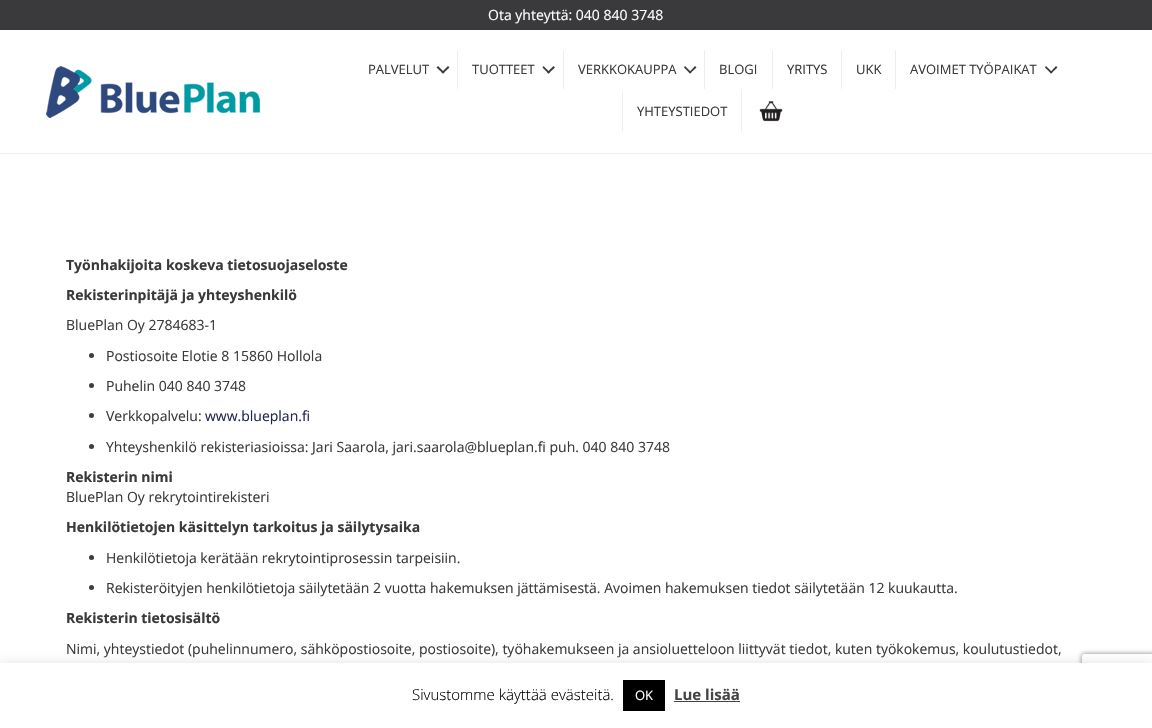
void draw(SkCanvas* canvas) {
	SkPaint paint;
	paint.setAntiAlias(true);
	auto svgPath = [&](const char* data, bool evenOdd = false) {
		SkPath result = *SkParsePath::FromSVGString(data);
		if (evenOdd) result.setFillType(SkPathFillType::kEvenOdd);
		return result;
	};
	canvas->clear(0xffffffff);
	paint.setColor(0xff3a3a3c);
	canvas->drawRect(SkRect::MakeXYWH(0, 0, 1152, 30), paint);
	SkFont f1(fontMgr->matchFamilyStyle("Open Sans", SkFontStyle::Normal()), 14);
	f1.setSubpixel(true);
	paint.setColor(0xffffffff);
	canvas->drawString("Ota yhteyttä: 040 840 3748", 488, 20, f1, paint);
	paint.setColor(0xffeeeeee);
	canvas->drawRect(SkRect::MakeXYWH(0, 153, 1152, 1), paint);
	canvas->drawImageRect(SkImages::DeferredFromEncodedData(SkData::MakeFromFileName("img1.png")), SkRect::MakeXYWH(46, 66, 214, 52), SkSamplingOptions());
	SkFont f2(fontMgr->matchFamilyStyle("Open Sans", SkFontStyle::Normal()), 13);
	f2.setSubpixel(true);
	paint.setColor(0xff3a3a3c);
	canvas->drawString("PALVELUT", 368, 74, f2, paint);
	canvas->drawPath(svgPath("M448 66L449.5 67.5L443 73.5L441.5 72.5Z"), paint);
	canvas->drawPath(svgPath("M438 66L444.5 72.5L443 73.5L436.5 67.5Z"), paint);
	paint.setColor(0xffeeeeee);
	canvas->drawRect(SkRect::MakeXYWH(457, 50, 1, 39), paint);
	paint.setColor(0xff3a3a3c);
	canvas->drawString("TUOTTEET", 472, 74, f2, paint);
	canvas->drawPath(svgPath("M553.5 66L555 67.5L548.5 73.5L547 72.5Z"), paint);
	canvas->drawPath(svgPath("M543.5 66L550 72.5L548.5 73.5L542.5 67.5Z"), paint);
	paint.setColor(0xffeeeeee);
	canvas->drawRect(SkRect::MakeXYWH(563, 50, 1, 39), paint);
	paint.setColor(0xff3a3a3c);
	canvas->drawString("VERKKOKAUPPA", 578, 74, f2, paint);
	canvas->drawPath(svgPath("M695 66L696.5 67.5L690 73.5L689 72.5Z"), paint);
	canvas->drawPath(svgPath("M685 66L691.5 72.5L690 73.5L684 67.5Z"), paint);
	paint.setColor(0xffeeeeee);
	canvas->drawRect(SkRect::MakeXYWH(704, 50, 1, 39), paint);
	paint.setColor(0xff3a3a3c);
	canvas->drawString("BLOGI", 719, 74, f2, paint);
	paint.setColor(0xffeeeeee);
	canvas->drawRect(SkRect::MakeXYWH(772, 50, 1, 39), paint);
	paint.setColor(0xff3a3a3c);
	canvas->drawString("YRITYS", 787, 74, f2, paint);
	paint.setColor(0xffeeeeee);
	canvas->drawRect(SkRect::MakeXYWH(841, 50, 1, 39), paint);
	paint.setColor(0xff3a3a3c);
	canvas->drawString("UKK", 856, 74, f2, paint);
	paint.setColor(0xffeeeeee);
	canvas->drawRect(SkRect::MakeXYWH(895, 50, 1, 39), paint);
	paint.setColor(0xff3a3a3c);
	canvas->drawString("AVOIMET TYÖPAIKAT", 910, 74, f2, paint);
	canvas->drawPath(svgPath("M1056 66L1057.5 67.5L1051 73.5L1050 72.5Z"), paint);
	canvas->drawPath(svgPath("M1046 66L1052.5 72.5L1051 73.5L1045 67.5Z"), paint);
	paint.setColor(0xffeeeeee);
	canvas->drawRect(SkRect::MakeXYWH(622, 92, 1, 39), paint);
	paint.setColor(0xff3a3a3c);
	canvas->drawString("YHTEYSTIEDOT", 637, 116, f2, paint);
	paint.setColor(0xffeeeeee);
	canvas->drawRect(SkRect::MakeXYWH(741, 89, 1, 44), paint);
	canvas->drawImageRect(SkImages::DeferredFromEncodedData(SkData::MakeFromFileName("img2.png")), SkRect::MakeXYWH(759, 100, 24, 22), SkSamplingOptions());
	SkFont f3(fontMgr->matchFamilyStyle("Open Sans", SkFontStyle::Bold()), 14);
	f3.setSubpixel(true);
	paint.setColor(0xff3a3a3c);
	canvas->drawString("Työnhakijoita koskeva tietosuojaseloste", 66, 270, f3, paint);
	canvas->drawString("Rekisterinpitäjä ja yhteyshenkilö", 66, 300, f3, paint);
	canvas->drawString("BluePlan Oy 2784683-1", 66, 330, f1, paint);
	paint.setColor(0xff3d3d3d);
	canvas->drawCircle(91.5, 355.5, 2.5, paint);
	paint.setColor(0xff3a3a3c);
	canvas->drawString("Postiosoite Elotie 8 15860 Hollola", 106, 361, f1, paint);
	paint.setColor(0xff3d3d3d);
	canvas->drawCircle(91.5, 385.5, 2.5, paint);
	paint.setColor(0xff3a3a3c);
	canvas->drawString("Puhelin 040 840 3748", 106, 391, f1, paint);
	paint.setColor(0xff3d3d3d);
	canvas->drawCircle(91.5, 415.5, 2.5, paint);
	paint.setColor(0xff3a3a3c);
	canvas->drawString("Verkkopalvelu:", 106, 421, f1, paint);
	paint.setColor(0xff21264e);
	canvas->drawString("www.blueplan.fi", 205, 421, f1, paint);
	paint.setColor(0xff3d3d3d);
	canvas->drawCircle(91.5, 446.5, 2.5, paint);
	paint.setColor(0xff3a3a3c);
	canvas->drawString("Yhteyshenkilö rekisteriasioissa: Jari Saarola, jari.saarola@blueplan.fi puh. 040 840 3748", 106, 452, f1, paint);
	canvas->drawString("Rekisterin nimi", 66, 482, f3, paint);
	canvas->drawString("BluePlan Oy rekrytointirekisteri", 66, 502, f1, paint);
	canvas->drawString("Henkilötietojen käsittelyn tarkoitus ja säilytysaika", 66, 532, f3, paint);
	paint.setColor(0xff3d3d3d);
	canvas->drawCircle(91.5, 557.5, 2.5, paint);
	paint.setColor(0xff3a3a3c);
	canvas->drawString("Henkilötietoja kerätään rekrytointiprosessin tarpeisiin.", 106, 563, f1, paint);
	paint.setColor(0xff3d3d3d);
	canvas->drawCircle(91.5, 587.5, 2.5, paint);
	paint.setColor(0xff3a3a3c);
	canvas->drawString("Rekisteröityjen henkilötietoja säilytetään 2 vuotta hakemuksen jättämisestä. Avoimen hakemuksen tiedot säilytetään 12 kuukautta.", 106, 593, f1, paint);
	canvas->drawString("Rekisterin tietosisältö", 66, 623, f3, paint);
	canvas->drawString("Nimi, yhteystiedot (puhelinnumero, sähköpostiosoite, postiosoite), työhakemukseen ja ansioluetteloon liittyvät tiedot, kuten työkokemus, koulutustiedot,", 66, 654, f1, paint);
	paint.setColor(0x4dacabab);
	paint.setMaskFilter(SkMaskFilter::MakeBlur(kNormal_SkBlurStyle, 5));
	canvas->drawRect(SkRect::MakeXYWH(0, 662, 1152, 65), paint);
	paint.setMaskFilter(nullptr);
	canvas->save();
	canvas->clipPath(svgPath("M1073 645H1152V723H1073ZM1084 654H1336C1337 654 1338 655 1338 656V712C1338 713 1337 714 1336 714H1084C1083 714 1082 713 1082 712V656C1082 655 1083 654 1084 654Z", true), true);
	paint.setColor(0xff808080);
	paint.setMaskFilter(SkMaskFilter::MakeBlur(kNormal_SkBlurStyle, 2.5));
	canvas->drawRoundRect(SkRect::MakeXYWH(1082, 654, 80, 60), 2, 2, paint);
	paint.setMaskFilter(nullptr);
	canvas->restore();
	paint.setColor(0xffffffff);
	canvas->drawRect(SkRect::MakeXYWH(0, 663, 1152, 65), paint);
	SkFont f4(fontMgr->matchFamilyStyle("Open Sans", SkFontStyle(300, SkFontStyle::kNormal_Width, SkFontStyle::kUpright_Slant)), 15);
	f4.setSubpixel(true);
	paint.setColor(0xff000000);
	canvas->drawString("Sivustomme käyttää evästeitä.", 412, 700, f4, paint);
	canvas->drawRect(SkRect::MakeXYWH(623, 680, 42, 31), paint);
	paint.setColor(0xffffffff);
	canvas->drawString("OK", 635, 700, f2, paint);
	SkFont f5(fontMgr->matchFamilyStyle("Open Sans", SkFontStyle::Bold()), 15);
	f5.setSubpixel(true);
	paint.setColor(0xff444444);
	canvas->drawString("Lue lisää", 674, 700, f5, paint);
	canvas->drawRect(SkRect::MakeXYWH(674, 701, 66, 1), paint);
}
